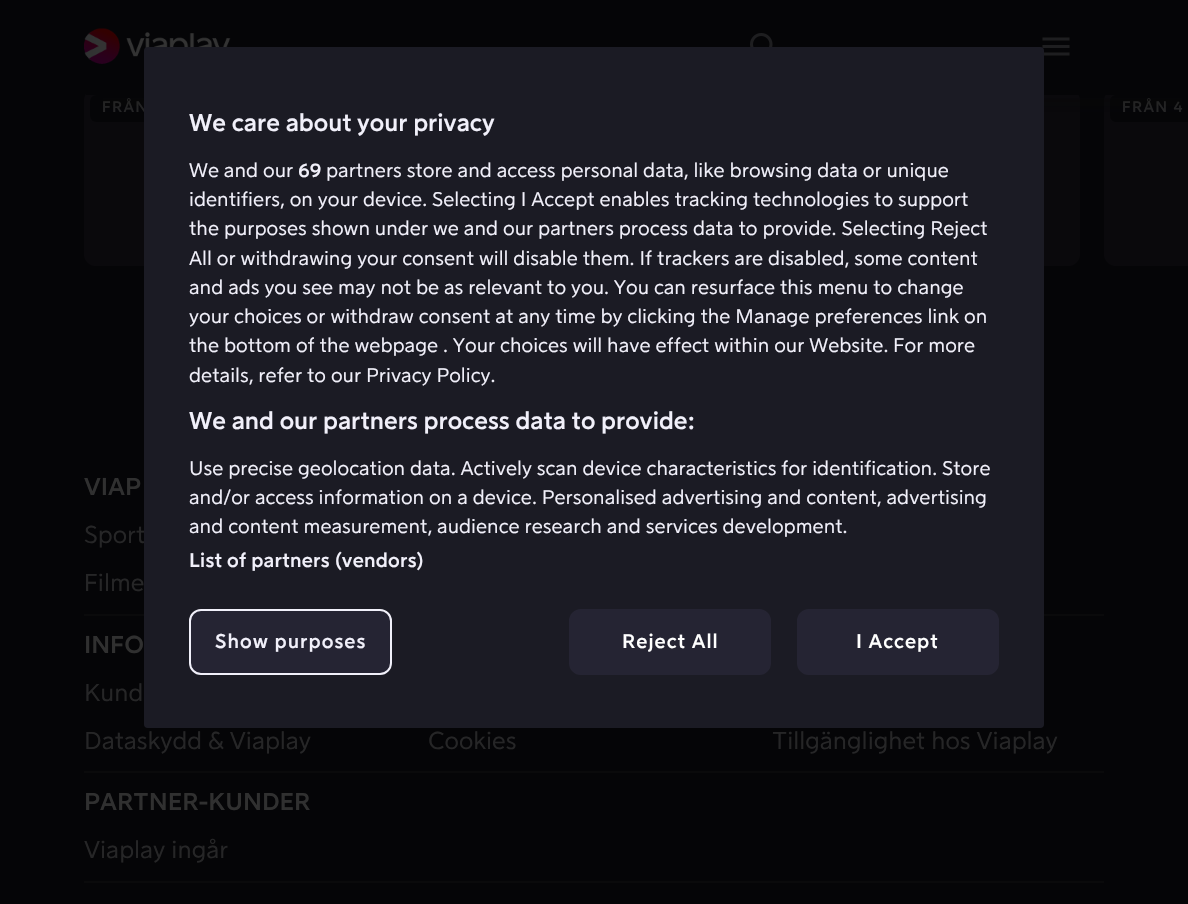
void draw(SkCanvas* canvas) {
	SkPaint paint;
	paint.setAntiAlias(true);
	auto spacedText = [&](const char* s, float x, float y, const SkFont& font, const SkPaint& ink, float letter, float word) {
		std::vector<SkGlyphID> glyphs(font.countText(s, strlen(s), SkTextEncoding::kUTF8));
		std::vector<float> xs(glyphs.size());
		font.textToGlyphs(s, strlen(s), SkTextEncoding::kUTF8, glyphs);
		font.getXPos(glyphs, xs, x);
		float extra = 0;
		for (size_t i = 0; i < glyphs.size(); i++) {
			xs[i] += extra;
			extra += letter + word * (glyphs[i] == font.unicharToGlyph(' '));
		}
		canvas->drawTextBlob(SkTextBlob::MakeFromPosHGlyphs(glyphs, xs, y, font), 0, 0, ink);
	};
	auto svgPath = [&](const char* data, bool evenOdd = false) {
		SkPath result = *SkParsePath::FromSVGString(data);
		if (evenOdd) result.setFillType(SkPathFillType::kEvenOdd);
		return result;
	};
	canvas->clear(0xff050507);
	paint.setColor(0xff0a090c);
	canvas->drawRoundRect(SkRect::MakeXYWH(84, 89, 317, 177), 12, 12, paint);
	canvas->drawRoundRect(SkRect::MakeXYWH(764, 89, 316, 177), 12, 12, paint);
	canvas->drawPath(svgPath("M1116 89H1188V266H1116C1109.5 266 1104 260.5 1104 254V101C1104 94.5 1109.5 89 1116 89Z"), paint);
	paint.setColor(0xff050507);
	canvas->drawRect(SkRect::MakeXYWH(86, 89, 1102, 6), paint);
	canvas->drawImageRect(SkImages::DeferredFromEncodedData(SkData::MakeFromFileName("img1.png")), SkRect::MakeXYWH(84, 28, 147, 36), SkSamplingOptions());
	canvas->drawImageRect(SkImages::DeferredFromEncodedData(SkData::MakeFromFileName("img2.png")), SkRect::MakeXYWH(750, 33, 23, 14), SkSamplingOptions());
	canvas->drawImageRect(SkImages::DeferredFromEncodedData(SkData::MakeFromFileName("img3.png")), SkRect::MakeXYWH(1042, 37, 28, 19), SkSamplingOptions());
	canvas->drawRoundRect(SkRect::MakeXYWH(90, 95, 123, 27), 6, 6, paint);
	SkFont f1(fontMgr->matchFamilyStyle("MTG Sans", SkFontStyle::Bold()), 15);
	f1.setSubpixel(true);
	paint.setColor(0xff303030);
	spacedText("FRÅN", 102, 112, f1, paint, 1.25, 0);
	paint.setColor(0xff050507);
	canvas->drawPath(svgPath("M1116 95H1188V122H1116C1112.5 122 1110 119.5 1110 116V101C1110 97.5 1112.5 95 1116 95Z"), paint);
	paint.setColor(0xff303030);
	spacedText("FRÅN 4", 1122, 112, f1, paint, 1.25, 0);
	{
		const SkColor colors[] = {0xcc050507, 0xba050507, 0x9e050507, 0x73050507, 0x45050507, 0x1f050507, 0x08050507, 0x00050507};
		const float stops[] = {0, 0.2, 0.33, 0.47, 0.6, 0.73, 0.87, 1};
		const SkPoint ends[] = {{594, -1.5}, {594, 185}};
		paint.setShader(SkGradientShader::MakeLinear(ends, colors, stops, 8, SkTileMode::kClamp));
		paint.setAlpha(255);
	}
	canvas->drawRect(SkRect::MakeXYWH(103, 98, 1079, 14), paint);
	paint.setShader(nullptr);
	paint.setColor(0xff0a0a0b);
	canvas->drawRect(SkRect::MakeXYWH(84, 614, 1020, 2), paint);
	SkFont f2(fontMgr->matchFamilyStyle("MTG Sans", SkFontStyle::Bold()), 24);
	f2.setSubpixel(true);
	paint.setColor(0xff303030);
	canvas->drawString("VIAP", 84, 495, f2, paint);
	SkFont f3(fontMgr->matchFamilyStyle("MTG Sans", SkFontStyle::Normal()), 24);
	f3.setSubpixel(true);
	paint.setColor(0xff262627);
	canvas->drawString("Sport", 84, 543, f3, paint);
	canvas->drawString("Filme", 84, 591, f3, paint);
	paint.setColor(0xff0a0a0b);
	canvas->drawRect(SkRect::MakeXYWH(84, 771, 1020, 2), paint);
	paint.setColor(0xff303030);
	canvas->drawString("INFO", 84, 653, f2, paint);
	paint.setColor(0xff262627);
	canvas->drawString("Kund", 84, 701, f3, paint);
	canvas->drawString("Dataskydd & Viaplay", 84, 749, f3, paint);
	canvas->drawString("Cookies", 428, 749, f3, paint);
	canvas->drawString("Tillgänglighet hos Viaplay", 772, 749, f3, paint);
	paint.setColor(0xff0a0a0b);
	canvas->drawRect(SkRect::MakeXYWH(84, 881, 1020, 2), paint);
	paint.setColor(0xff303030);
	canvas->drawString("PARTNER-KUNDER", 84, 810, f2, paint);
	paint.setColor(0xff262627);
	canvas->drawString("Viaplay ingår", 84, 858, f3, paint);
	paint.setColor(0xff1b1b24);
	canvas->drawRoundRect(SkRect::MakeXYWH(144, 47, 900, 681), 4, 4, paint);
	paint.setColor(0xfff1f0fa);
	canvas->drawString("We care about your privacy", 189, 131, f2, paint);
	SkFont f4(fontMgr->matchFamilyStyle("MTG Sans", SkFontStyle::Normal()), 19.5);
	f4.setSubpixel(true);
	canvas->drawString("We and our", 189, 177, f4, paint);
	SkFont f5(fontMgr->matchFamilyStyle("MTG Sans", SkFontStyle::Bold()), 19.5);
	f5.setSubpixel(true);
	canvas->drawString("69", 298, 177, f5, paint);
	canvas->drawString("partners store and access personal data, like browsing data or unique", 326, 177, f4, paint);
	canvas->drawString("identifiers, on your device. Selecting I Accept enables tracking technologies to support", 189, 206, f4, paint);
	canvas->drawString("the purposes shown under we and our partners process data to provide. Selecting Reject", 189, 235, f4, paint);
	canvas->drawString("All or withdrawing your consent will disable them. If trackers are disabled, some content", 189, 265, f4, paint);
	canvas->drawString("and ads you see may not be as relevant to you. You can resurface this menu to change", 189, 294, f4, paint);
	canvas->drawString("your choices or withdraw consent at any time by clicking the Manage preferences link on", 189, 323, f4, paint);
	canvas->drawString("the bottom of the webpage . Your choices will have effect within our Website. For more", 189, 352, f4, paint);
	canvas->drawString("details, refer to our Privacy Policy.", 189, 382, f4, paint);
	canvas->drawString("We and our partners process data to provide:", 189, 429, f2, paint);
	canvas->drawString("Use precise geolocation data. Actively scan device characteristics for identification. Store", 189, 475, f4, paint);
	canvas->drawString("and/or access information on a device. Personalised advertising and content, advertising", 189, 504, f4, paint);
	canvas->drawString("and content measurement, audience research and services development.", 189, 533, f4, paint);
	spacedText("List of partners (vendors)", 189, 567, f5, paint, 0.2, 0);
	paint.setColor(0xff252433);
	canvas->drawRoundRect(SkRect::MakeXYWH(190, 610, 201, 64), 11, 11, paint);
	paint.setStroke(true);
	paint.setStrokeWidth(2);
	paint.setColor(0xfff1f0fa);
	canvas->drawRoundRect(SkRect::MakeXYWH(190, 610, 201, 64), 11, 11, paint);
	paint.setStroke(false);
	spacedText("Show purposes", 215, 648, f5, paint, 1, 0);
	paint.setColor(0xff252433);
	canvas->drawRoundRect(SkRect::MakeXYWH(570, 610, 200, 64), 11, 11, paint);
	paint.setStroke(true);
	canvas->drawRoundRect(SkRect::MakeXYWH(570, 610, 200, 64), 11, 11, paint);
	paint.setStroke(false);
	paint.setColor(0xffffffff);
	spacedText("Reject All", 622, 648, f5, paint, 1, 0);
	paint.setColor(0xff252433);
	canvas->drawRoundRect(SkRect::MakeXYWH(798, 610, 200, 64), 11, 11, paint);
	paint.setStroke(true);
	canvas->drawRoundRect(SkRect::MakeXYWH(798, 610, 200, 64), 11, 11, paint);
	paint.setStroke(false);
	paint.setColor(0xffffffff);
	spacedText("I Accept", 856, 648, f5, paint, 1, 0);
}
